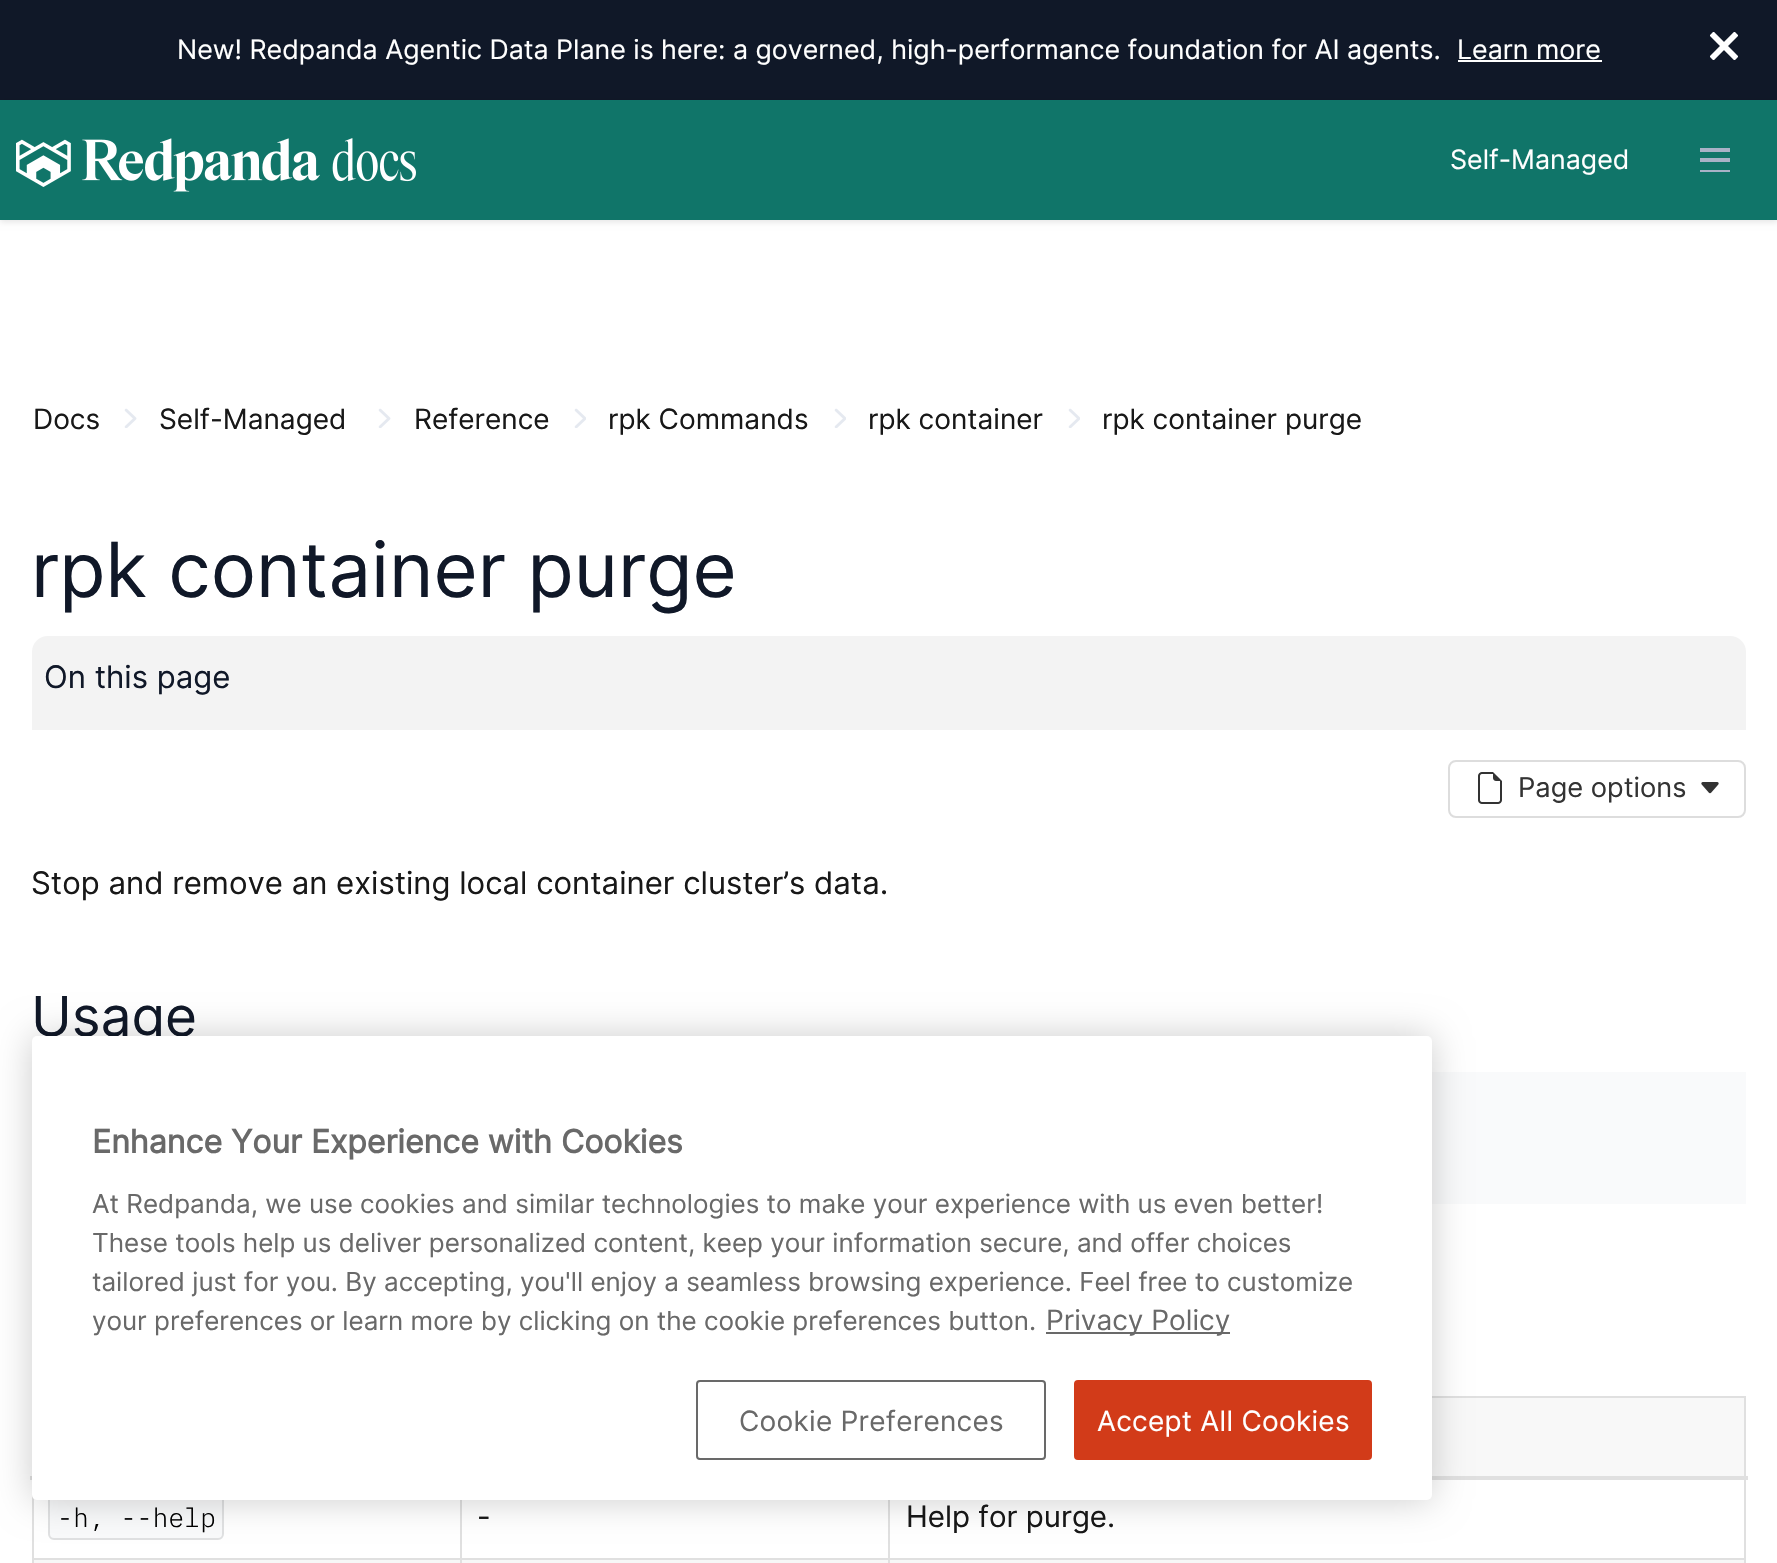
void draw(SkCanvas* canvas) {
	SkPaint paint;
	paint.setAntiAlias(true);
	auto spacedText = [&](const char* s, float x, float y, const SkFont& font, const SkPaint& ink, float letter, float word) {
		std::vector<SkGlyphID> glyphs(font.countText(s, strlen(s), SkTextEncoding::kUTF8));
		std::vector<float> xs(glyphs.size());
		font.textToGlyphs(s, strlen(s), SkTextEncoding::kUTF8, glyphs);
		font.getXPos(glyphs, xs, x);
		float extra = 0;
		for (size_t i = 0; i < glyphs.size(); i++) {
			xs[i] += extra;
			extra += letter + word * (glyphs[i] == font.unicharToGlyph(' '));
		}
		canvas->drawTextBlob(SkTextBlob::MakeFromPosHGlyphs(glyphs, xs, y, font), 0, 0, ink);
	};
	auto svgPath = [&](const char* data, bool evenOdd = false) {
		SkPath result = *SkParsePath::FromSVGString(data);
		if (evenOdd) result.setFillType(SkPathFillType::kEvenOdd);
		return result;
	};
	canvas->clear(0xffffffff);
	paint.setColor(0xff101828);
	canvas->drawRect(SkRect::MakeXYWH(0, 0, 1777, 100), paint);
	SkFont f1(fontMgr->matchFamilyStyle("Inter", SkFontStyle::Normal()), 26.8);
	f1.setSubpixel(true);
	paint.setColor(0xffffffff);
	spacedText("New! Redpanda Agentic Data Plane is here: a governed, high-performance foundation for AI agents.", 177, 59, f1, paint, 0, -0.1);
	canvas->drawString("Learn more", 1457, 59, f1, paint);
	canvas->drawRect(SkRect::MakeXYWH(1458, 60, 144, 2), paint);
	canvas->save();
	canvas->clipRect(SkRect::MakeXYWH(1710, 32, 28, 28));
	paint.setStroke(true);
	paint.setStrokeWidth(5.8);
	canvas->drawPath(svgPath("M1711.5 33.5L1736.5 58.5M1736.5 33.5L1711.5 58.5"), paint);
	canvas->restore();
	paint.setStroke(false);
	paint.setColor(0x1a000000);
	paint.setMaskFilter(SkMaskFilter::MakeBlur(kNormal_SkBlurStyle, 3));
	canvas->drawRect(SkRect::MakeXYWH(0, 102, 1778, 120), paint);
	paint.setMaskFilter(nullptr);
	paint.setColor(0xff107569);
	canvas->drawRect(SkRect::MakeXYWH(0, 100, 1777, 120), paint);
	canvas->drawImageRect(SkImages::DeferredFromEncodedData(SkData::MakeFromFileName("img1.png")), SkRect::MakeXYWH(16, 138, 400, 54), SkSamplingOptions());
	paint.setColor(0xffffffff);
	canvas->drawString("Self-Managed", 1450, 169, f1, paint);
	paint.setColor(0xffa8b2c7);
	canvas->drawRect(SkRect::MakeXYWH(1700, 148, 30, 4), paint);
	canvas->drawRect(SkRect::MakeXYWH(1700, 158, 30, 4), paint);
	canvas->drawRect(SkRect::MakeXYWH(1700, 170, 30, 2), paint);
	SkFont f2(fontMgr->matchFamilyStyle("Inter", SkFontStyle::Normal()), 28);
	f2.setSubpixel(true);
	paint.setColor(0xff181818);
	canvas->drawString("Docs", 33, 429, f2, paint);
	canvas->drawImageRect(SkImages::DeferredFromEncodedData(SkData::MakeFromFileName("img2.png")), SkRect::MakeXYWH(124, 408, 13, 20), SkSamplingOptions());
	canvas->drawString("Self-Managed", 159, 429, f2, paint);
	canvas->drawImageRect(SkImages::DeferredFromEncodedData(SkData::MakeFromFileName("img2.png")), SkRect::MakeXYWH(378, 408, 13, 20), SkSamplingOptions());
	canvas->drawString("Reference", 414, 429, f2, paint);
	canvas->drawImageRect(SkImages::DeferredFromEncodedData(SkData::MakeFromFileName("img3.png")), SkRect::MakeXYWH(574, 408, 12, 20), SkSamplingOptions());
	canvas->drawString("rpk Commands", 608, 429, f2, paint);
	canvas->drawImageRect(SkImages::DeferredFromEncodedData(SkData::MakeFromFileName("img3.png")), SkRect::MakeXYWH(834, 408, 12, 20), SkSamplingOptions());
	canvas->drawString("rpk container", 868, 429, f2, paint);
	canvas->drawImageRect(SkImages::DeferredFromEncodedData(SkData::MakeFromFileName("img3.png")), SkRect::MakeXYWH(1068, 408, 12, 20), SkSamplingOptions());
	canvas->drawString("rpk container purge", 1102, 429, f2, paint);
	SkFont f3(fontMgr->matchFamilyStyle("Inter", SkFontStyle::Normal()), 76);
	f3.setSubpixel(true);
	paint.setColor(0xff101828);
	canvas->drawString("rpk container purge", 31, 597, f3, paint);
	paint.setColor(0xfff3f3f3);
	canvas->drawPath(svgPath("M48 636H1730C1739 636 1746 643 1746 652V730H32V652C32 643 39 636 48 636Z"), paint);
	SkFont f4(fontMgr->matchFamilyStyle("Inter", SkFontStyle::Normal()), 31.1);
	f4.setSubpixel(true);
	paint.setColor(0xff101828);
	canvas->drawString("On this page", 44, 688, f4, paint);
	paint.setStroke(true);
	paint.setStrokeWidth(2);
	paint.setColor(0xffdddddd);
	canvas->drawRoundRect(SkRect::MakeXYWH(1449, 761, 296, 56), 7, 7, paint);
	canvas->drawImageRect(SkImages::DeferredFromEncodedData(SkData::MakeFromFileName("img4.png")), SkRect::MakeXYWH(1478, 772, 24, 32), SkSamplingOptions());
	SkFont f5(fontMgr->matchFamilyStyle("Inter", SkFontStyle::Normal()), 27.25);
	f5.setSubpixel(true);
	paint.setStroke(false);
	paint.setColor(0xff333333);
	canvas->drawString("Page options", 1518, 797, f5, paint);
	canvas->drawImageRect(SkImages::DeferredFromEncodedData(SkData::MakeFromFileName("img5.png")), SkRect::MakeXYWH(1701, 782, 18, 12), SkSamplingOptions());
	paint.setColor(0xff181818);
	canvas->drawString("Stop and remove an existing local container cluster’s data.", 31, 894, f4, paint);
	SkFont f6(fontMgr->matchFamilyStyle("Inter", SkFontStyle::Normal()), 55);
	f6.setSubpixel(true);
	paint.setColor(0xff101828);
	canvas->drawString("Usage", 31, 1036, f6, paint);
	paint.setColor(0xfff9fafb);
	canvas->drawRect(SkRect::MakeXYWH(1432, 1072, 314, 132), paint);
	paint.setColor(0xffe0e0e0);
	canvas->drawRect(SkRect::MakeXYWH(1432, 1396, 314, 2), paint);
	paint.setColor(0xfff7f7f7);
	canvas->drawRect(SkRect::MakeXYWH(32, 1560, 1714, 3), paint);
	paint.setColor(0xffe0e0e0);
	canvas->drawRect(SkRect::MakeXYWH(1744, 1396, 2, 167), paint);
	canvas->drawRect(SkRect::MakeXYWH(32, 1495, 2, 68), paint);
	paint.setColor(0xfff8f8f8);
	canvas->drawRect(SkRect::MakeXYWH(1432, 1398, 312, 78), paint);
	paint.setColor(0xffe0e0e0);
	canvas->drawRect(SkRect::MakeXYWH(30, 1476, 2, 4), paint);
	canvas->drawRect(SkRect::MakeXYWH(1432, 1476, 316, 4), paint);
	paint.setColor(0xfff9fafb);
	canvas->drawRoundRect(SkRect::MakeXYWH(49, 1495, 174, 44), 5, 5, paint);
	paint.setStroke(true);
	paint.setColor(0xffe0e1e2);
	canvas->drawRoundRect(SkRect::MakeXYWH(49, 1495, 174, 44), 5, 5, paint);
	SkFont f7(fontMgr->matchFamilyStyle("IBM Plex Mono", SkFontStyle(300, SkFontStyle::kNormal_Width, SkFontStyle::kUpright_Slant)), 26.5);
	f7.setSubpixel(true);
	paint.setStroke(false);
	paint.setColor(0xff000000);
	canvas->drawString("-h, --help", 57, 1527, f7, paint);
	paint.setColor(0xffe0e0e0);
	canvas->drawRect(SkRect::MakeXYWH(888, 1558, 858, 2), paint);
	canvas->drawRect(SkRect::MakeXYWH(888, 1558, 2, 5), paint);
	canvas->drawRect(SkRect::MakeXYWH(460, 1558, 430, 2), paint);
	canvas->drawRect(SkRect::MakeXYWH(460, 1558, 2, 5), paint);
	canvas->drawRect(SkRect::MakeXYWH(32, 1558, 430, 2), paint);
	canvas->drawRect(SkRect::MakeXYWH(460, 1500, 2, 60), paint);
	SkFont f8(fontMgr->matchFamilyStyle("Inter", SkFontStyle::Normal()), 29.5);
	f8.setSubpixel(true);
	paint.setColor(0xff181818);
	canvas->drawString("-", 477, 1527, f8, paint);
	paint.setColor(0xffe0e0e0);
	canvas->drawRect(SkRect::MakeXYWH(888, 1500, 2, 60), paint);
	paint.setColor(0xff181818);
	canvas->drawString("Help for purge.", 906, 1527, f8, paint);
	paint.setColor(0x33000000);
	paint.setMaskFilter(SkMaskFilter::MakeBlur(kNormal_SkBlurStyle, 18));
	canvas->drawRoundRect(SkRect::MakeXYWH(32, 1036, 1400, 464), 5, 5, paint);
	paint.setMaskFilter(nullptr);
	paint.setColor(0xffffffff);
	canvas->drawRoundRect(SkRect::MakeXYWH(32, 1036, 1400, 464), 5, 5, paint);
	SkFont f9(fontMgr->matchFamilyStyle("Inter", SkFontStyle::Bold()), 32);
	f9.setSubpixel(true);
	paint.setColor(0xff696969);
	canvas->drawString("Enhance Your Experience with Cookies", 92, 1153, f9, paint);
	SkFont f10(fontMgr->matchFamilyStyle("Inter", SkFontStyle::Normal()), 26);
	f10.setSubpixel(true);
	canvas->drawString("At Redpanda, we use cookies and similar technologies to make your experience with us even better!", 92, 1213, f10, paint);
	canvas->drawString("These tools help us deliver personalized content, keep your information secure, and offer choices", 92, 1252, f10, paint);
	canvas->drawString("tailored just for you. By accepting, you'll enjoy a seamless browsing experience. Feel free to customize", 92, 1291, f10, paint);
	canvas->drawString("your preferences or learn more by clicking on the cookie preferences button.", 92, 1330, f10, paint);
	canvas->drawRect(SkRect::MakeXYWH(1046, 1332, 184, 2), paint);
	canvas->drawString("Privacy Policy", 1046, 1330, f2, paint);
	paint.setStroke(true);
	canvas->drawRoundRect(SkRect::MakeXYWH(697, 1381, 348, 78), 3, 3, paint);
	paint.setStroke(false);
	spacedText("Cookie Preferences", 739, 1431, f2, paint, 0.25, 0);
	paint.setColor(0xffd23b19);
	canvas->drawRoundRect(SkRect::MakeXYWH(1075, 1381, 296, 78), 3, 3, paint);
	paint.setStroke(true);
	canvas->drawRoundRect(SkRect::MakeXYWH(1075, 1381, 296, 78), 3, 3, paint);
	paint.setStroke(false);
	paint.setColor(0xffffffff);
	spacedText("Accept All Cookies", 1097, 1431, f2, paint, 0.25, 0);
}
